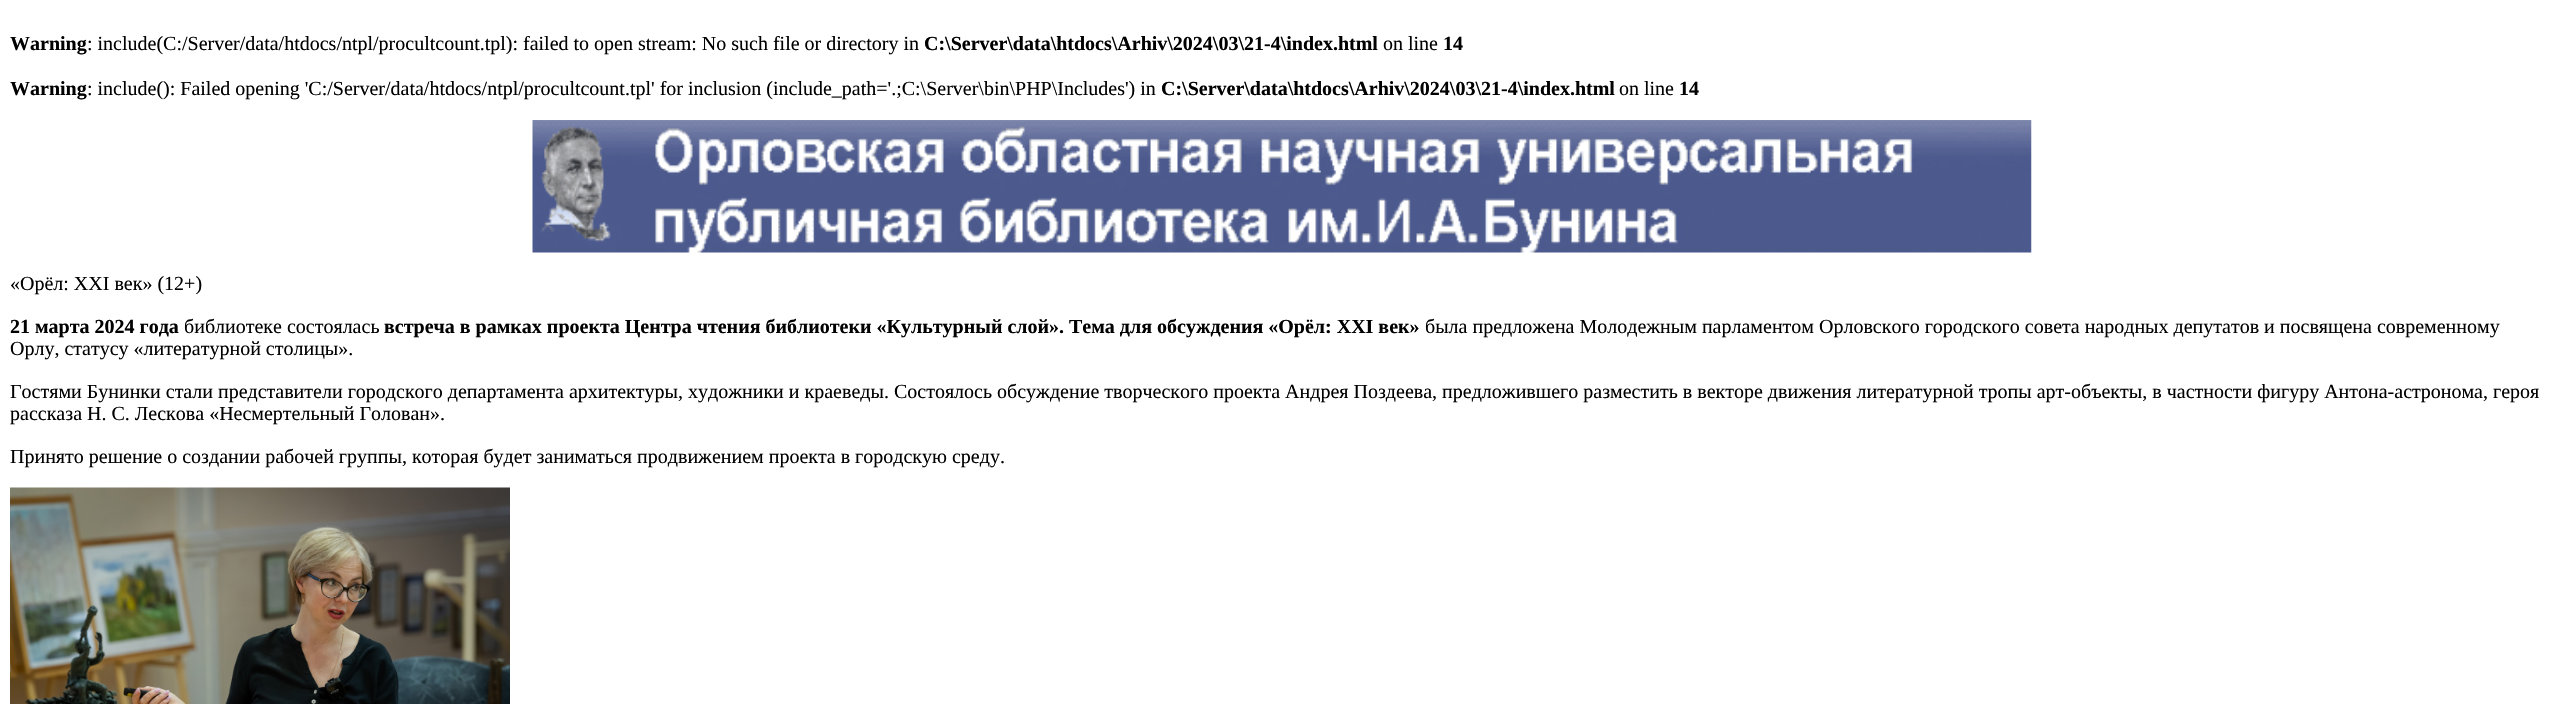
void draw(SkCanvas* canvas) {
	SkPaint paint;
	paint.setAntiAlias(true);
	canvas->clear(0xffffffff);
	SkFont f1(fontMgr->matchFamilyStyle("Liberation Serif", SkFontStyle::Bold()), 20);
	f1.setSubpixel(true);
	paint.setColor(0xff000000);
	canvas->drawString("Warning", 10, 50, f1, paint);
	SkFont f2(fontMgr->matchFamilyStyle("Liberation Serif", SkFontStyle::Normal()), 20);
	f2.setSubpixel(true);
	canvas->drawString(": include(C:/Server/data/htdocs/ntpl/procultcount.tpl): failed to open stream: No such file or directory in", 87, 50, f2, paint);
	canvas->drawString("C:\\Server\\data\\htdocs\\Arhiv\\2024\\03\\21-4\\index.html", 924, 50, f1, paint);
	canvas->drawString("on line", 1383, 50, f2, paint);
	canvas->drawString("14", 1443, 50, f1, paint);
	canvas->drawString("Warning", 10, 95, f1, paint);
	canvas->drawString(": include(): Failed opening 'C:/Server/data/htdocs/ntpl/procultcount.tpl' for inclusion (include_path='.;C:\\Server\\bin\\PHP\\Includes') in", 87, 95, f2, paint);
	canvas->drawString("C:\\Server\\data\\htdocs\\Arhiv\\2024\\03\\21-4\\index.html", 1161, 95, f1, paint);
	canvas->drawString("on line", 1619, 95, f2, paint);
	canvas->drawString("14", 1679, 95, f1, paint);
	canvas->drawImageRect(SkImages::DeferredFromEncodedData(SkData::MakeFromFileName("img1.png")), SkRect::MakeXYWH(532, 120, 1500, 133), SkSamplingOptions());
	canvas->drawString("«Орёл: XXI век» (12+)", 10, 290, f2, paint);
	canvas->drawString("21 марта 2024 года", 10, 333, f1, paint);
	canvas->drawString("библиотеке состоялась", 184, 333, f2, paint);
	canvas->drawString("встреча в рамках проекта Центра чтения библиотеки «Культурный слой». Тема для обсуждения «Орёл: XXI век»", 384, 333, f1, paint);
	canvas->drawString("была предложена Молодежным парламентом Орловского городского совета народных депутатов и посвящена современному", 1425, 333, f2, paint);
	canvas->drawString("Орлу, статусу «литературной столицы».", 10, 355, f2, paint);
	canvas->drawString("Гостями Бунинки стали представители городского департамента архитектуры, художники и краеведы. Состоялось обсуждение творческого проекта Андрея Поздеева, предложившего разместить в векторе движения литературной тропы арт-объекты, в частности фигуру Антона-астронома, героя", 10, 398, f2, paint);
	canvas->drawString("рассказа Н. С. Лескова «Несмертельный Голован».", 10, 420, f2, paint);
	canvas->drawString("Принято решение о создании рабочей группы, которая будет заниматься продвижением проекта в городскую среду.", 10, 463, f2, paint);
	canvas->drawImageRect(SkImages::DeferredFromEncodedData(SkData::MakeFromFileName("img2.png")), SkRect::MakeXYWH(10, 487, 500, 217), SkSamplingOptions());
}
